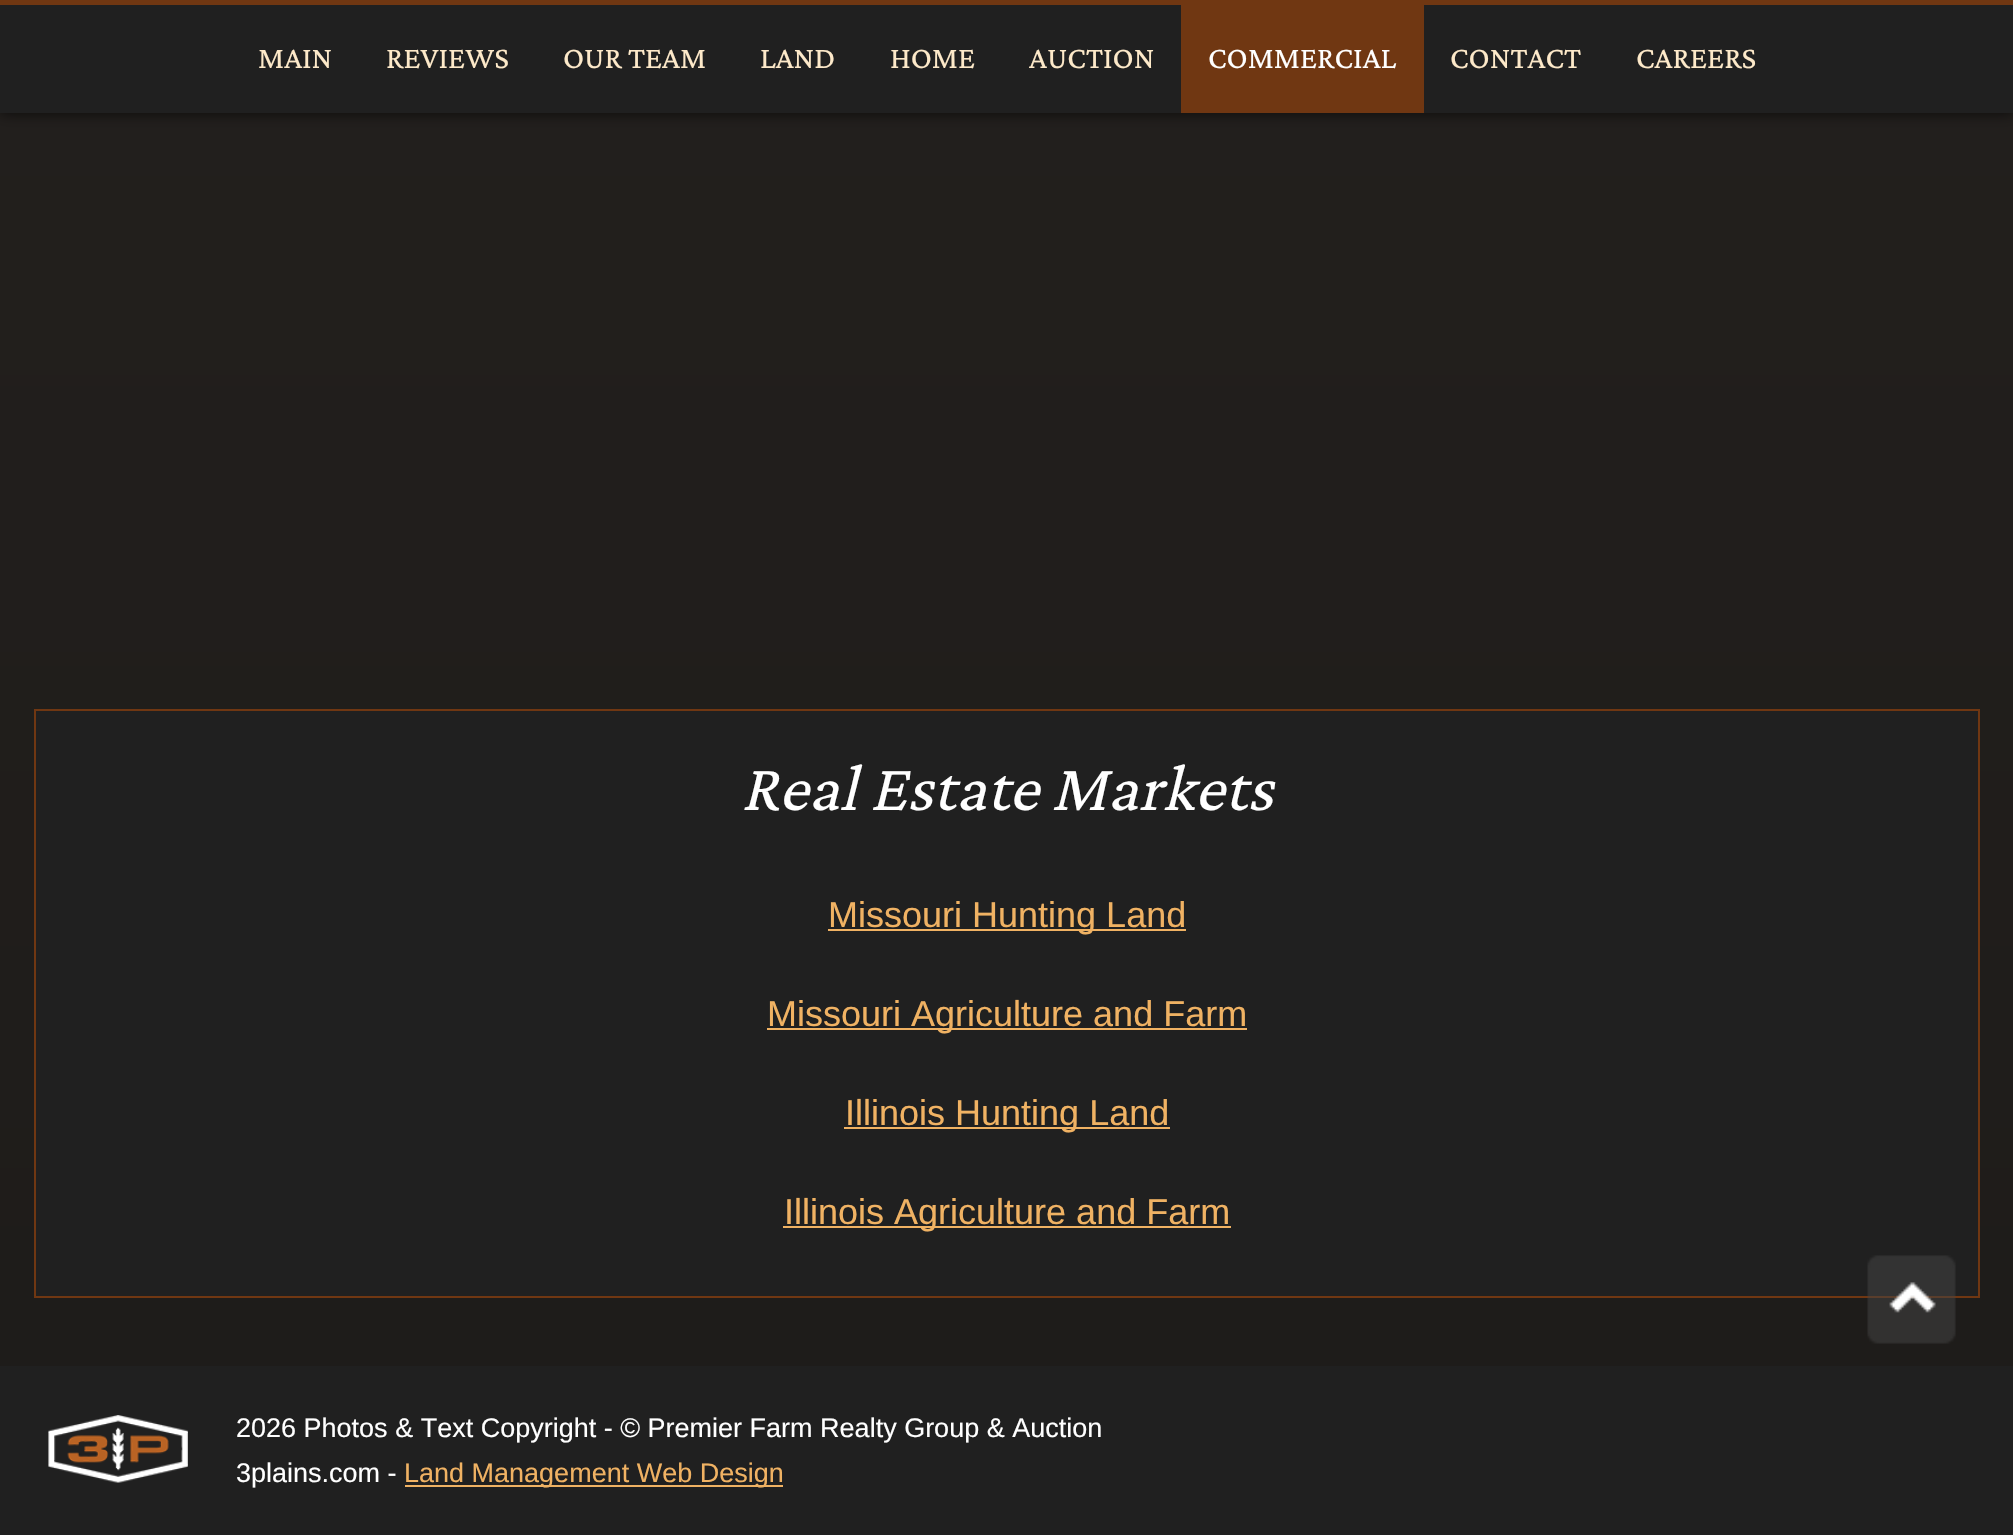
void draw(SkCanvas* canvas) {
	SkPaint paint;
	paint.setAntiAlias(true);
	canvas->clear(0xffffffff);
	{
		const SkColor colors[] = {0xff2f2824, 0xff1e1c1a};
		const float stops[] = {0, 1};
		const SkPoint ends[] = {{1007, -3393}, {1007, 1366}};
		paint.setShader(SkGradientShader::MakeLinear(ends, colors, stops, 2, SkTileMode::kClamp));
		paint.setAlpha(255);
	}
	canvas->drawRect(SkRect::MakeXYWH(0, 113, 2013, 1253), paint);
	paint.setShader(nullptr);
	paint.setColor(0xb3000000);
	paint.setMaskFilter(SkMaskFilter::MakeBlur(kNormal_SkBlurStyle, 7));
	canvas->drawRect(SkRect::MakeXYWH(0, 0, 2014, 113), paint);
	paint.setMaskFilter(nullptr);
	paint.setColor(0xff202020);
	canvas->drawRect(SkRect::MakeXYWH(0, 5, 2013, 108), paint);
	paint.setColor(0xff703712);
	canvas->drawRect(SkRect::MakeXYWH(0, 0, 2013, 5), paint);
	SkFont f1(fontMgr->matchFamilyStyle("Crimson Pro", SkFontStyle::Normal()), 31.5);
	f1.setSubpixel(true);
	paint.setColor(0xfffde9c9);
	canvas->drawString("MAIN", 258, 68, f1, paint);
	canvas->drawString("REVIEWS", 386, 68, f1, paint);
	canvas->drawString("OUR TEAM", 563, 68, f1, paint);
	canvas->drawString("LAND", 760, 68, f1, paint);
	canvas->drawString("HOME", 890, 68, f1, paint);
	canvas->drawString("AUCTION", 1029, 68, f1, paint);
	paint.setColor(0xff703712);
	canvas->drawRect(SkRect::MakeXYWH(1181, 5, 243, 108), paint);
	paint.setColor(0xffffffff);
	canvas->drawString("COMMERCIAL", 1208, 68, f1, paint);
	paint.setColor(0xfffde9c9);
	canvas->drawString("CONTACT", 1450, 68, f1, paint);
	canvas->drawString("CAREERS", 1636, 68, f1, paint);
	paint.setColor(0xff202020);
	canvas->drawRect(SkRect::MakeXYWH(35, 710, 1944, 587), paint);
	paint.setStroke(true);
	paint.setStrokeWidth(2);
	paint.setColor(0xff703712);
	canvas->drawRect(SkRect::MakeXYWH(35, 710, 1944, 587), paint);
	SkFont f2(fontMgr->matchFamilyStyle("Crimson Pro", SkFontStyle::Italic()), 67.5);
	f2.setSubpixel(true);
	paint.setStroke(false);
	paint.setColor(0xffffffff);
	canvas->drawString("Real Estate Markets", 741, 810, f2, paint);
	paint.setColor(0xfff0b263);
	canvas->drawRect(SkRect::MakeXYWH(828, 929, 358, 2), paint);
	SkFont f3(fontMgr->matchFamilyStyle("Liberation Sans", SkFontStyle::Normal()), 36);
	f3.setSubpixel(true);
	canvas->drawString("Missouri Hunting Land", 828, 927, f3, paint);
	canvas->drawRect(SkRect::MakeXYWH(767, 1028, 480, 2), paint);
	canvas->drawString("Missouri Agriculture and Farm", 767, 1026, f3, paint);
	canvas->drawRect(SkRect::MakeXYWH(844, 1127, 326, 2), paint);
	canvas->drawString("Illinois Hunting Land", 845, 1125, f3, paint);
	canvas->drawRect(SkRect::MakeXYWH(783, 1226, 448, 2), paint);
	canvas->drawString("Illinois Agriculture and Farm", 784, 1224, f3, paint);
	paint.setColor(0xff202020);
	canvas->drawRect(SkRect::MakeXYWH(0, 1366, 2013, 169), paint);
	canvas->drawImageRect(SkImages::DeferredFromEncodedData(SkData::MakeFromFileName("img1.png")), SkRect::MakeXYWH(48, 1415, 140, 68), SkSamplingOptions());
	SkFont f4(fontMgr->matchFamilyStyle("Liberation Sans", SkFontStyle::Normal()), 27);
	f4.setSubpixel(true);
	paint.setColor(0xffffffff);
	canvas->drawString("2026 Photos & Text Copyright - © Premier Farm Realty Group & Auction", 236, 1437, f4, paint);
	canvas->drawString("3plains.com -", 236, 1482, f4, paint);
	paint.setColor(0xfff0b263);
	canvas->drawRect(SkRect::MakeXYWH(405, 1485, 378, 2), paint);
	canvas->drawString("Land Management Web Design", 404, 1482, f4, paint);
	canvas->drawImageRect(SkImages::DeferredFromEncodedData(SkData::MakeFromFileName("img2.png")), SkRect::MakeXYWH(1867, 1255, 89, 89), SkSamplingOptions());
}
